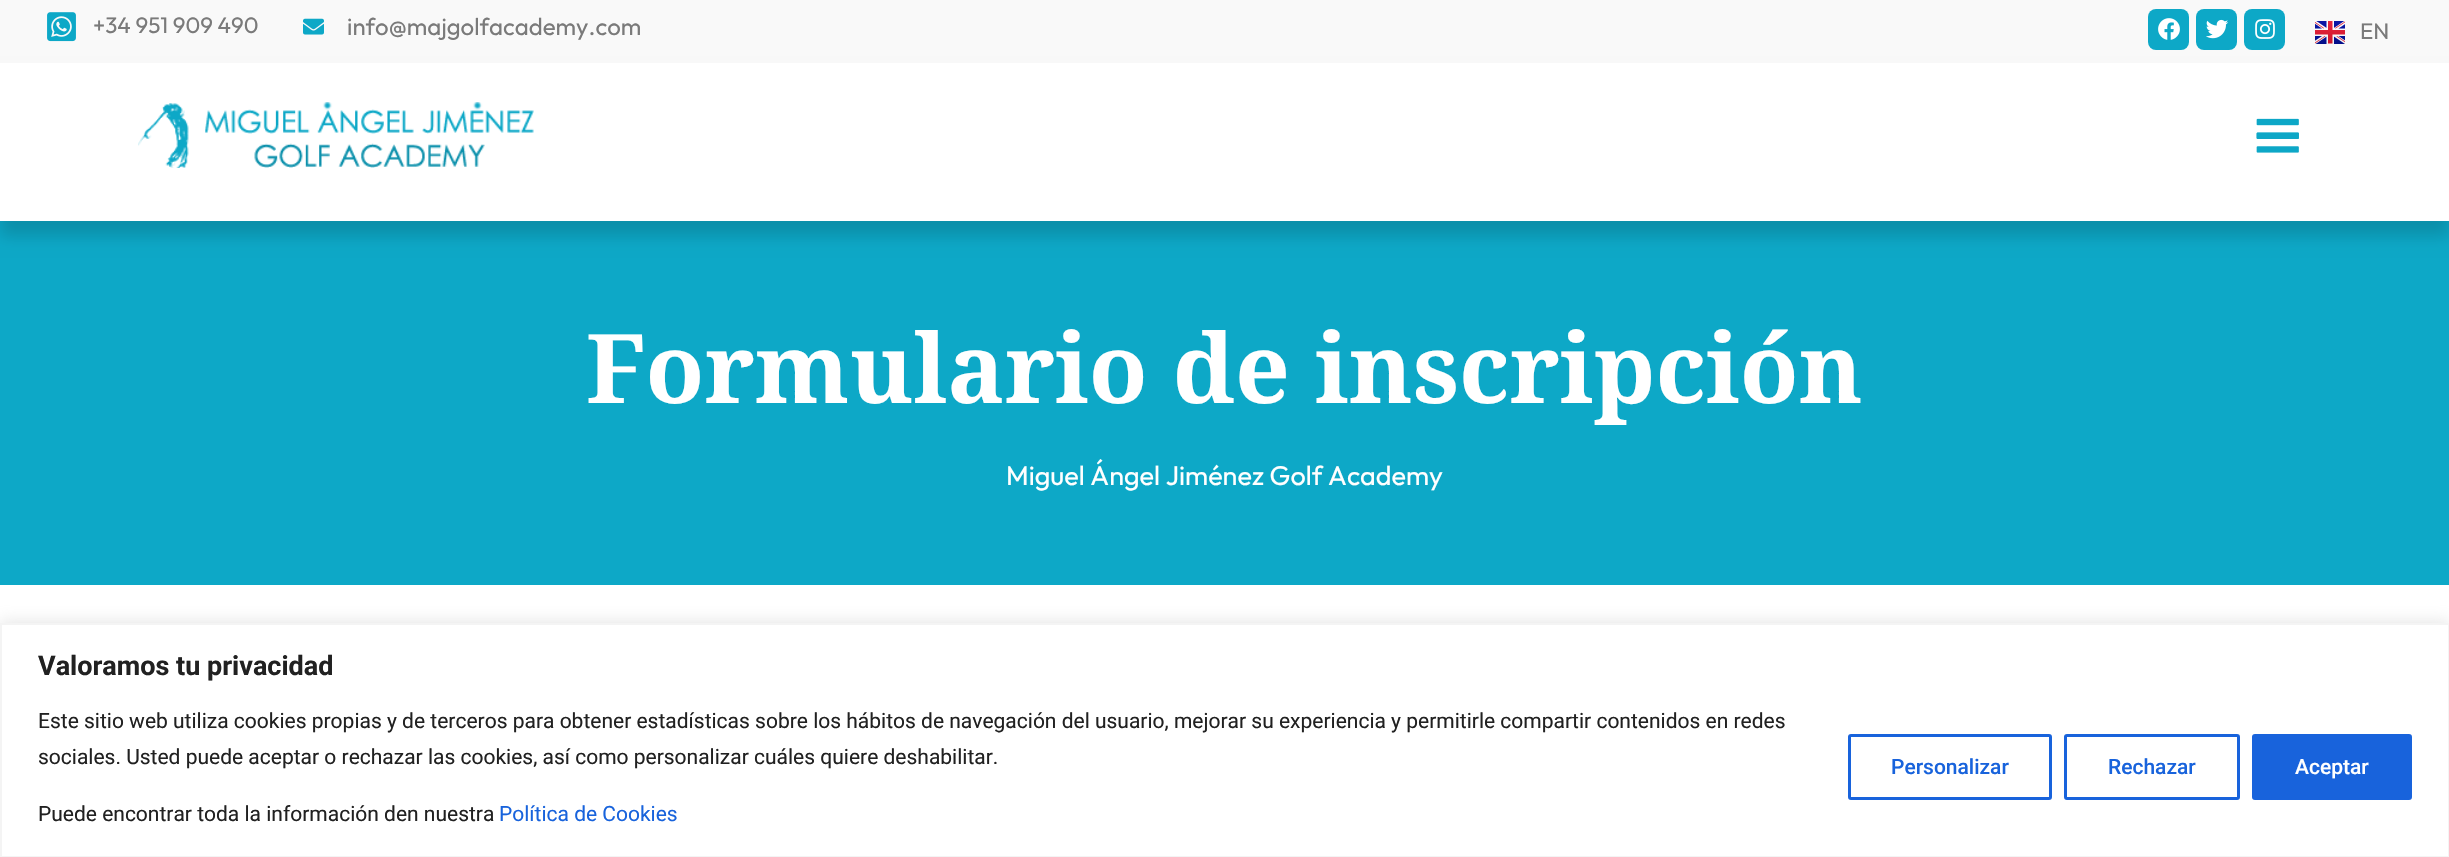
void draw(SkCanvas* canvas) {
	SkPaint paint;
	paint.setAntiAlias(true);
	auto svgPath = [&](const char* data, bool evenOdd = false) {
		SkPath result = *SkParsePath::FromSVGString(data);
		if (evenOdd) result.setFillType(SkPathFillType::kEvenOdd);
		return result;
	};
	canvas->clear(0xffffffff);
	paint.setColor(0xfff9f9f9);
	canvas->drawRect(SkRect::MakeXYWH(0, 0, 2449, 63), paint);
	canvas->drawImageRect(SkImages::DeferredFromEncodedData(SkData::MakeFromFileName("img1.png")), SkRect::MakeXYWH(47, 12, 29, 30), SkSamplingOptions());
	SkFont f1(fontMgr->matchFamilyStyle("Outfit", SkFontStyle::Normal()), 22.5);
	f1.setSubpixel(true);
	paint.setColor(0xff7a7a7a);
	canvas->drawString("+34 951 909 490", 93, 33, f1, paint);
	canvas->drawImageRect(SkImages::DeferredFromEncodedData(SkData::MakeFromFileName("img2.png")), SkRect::MakeXYWH(303, 18, 21, 17), SkSamplingOptions());
	SkFont f2(fontMgr->matchFamilyStyle("Outfit", SkFontStyle::Normal()), 24);
	f2.setSubpixel(true);
	canvas->drawString("info@majgolfacademy.com", 347, 35, f2, paint);
	paint.setColor(0xff0da8c7);
	canvas->drawRoundRect(SkRect::MakeXYWH(2148, 9, 41, 41), 8, 8, paint);
	canvas->drawImageRect(SkImages::DeferredFromEncodedData(SkData::MakeFromFileName("img3.png")), SkRect::MakeXYWH(2158, 18, 22, 22), SkSamplingOptions());
	canvas->drawRoundRect(SkRect::MakeXYWH(2196, 9, 41, 41), 8, 8, paint);
	canvas->drawImageRect(SkImages::DeferredFromEncodedData(SkData::MakeFromFileName("img4.png")), SkRect::MakeXYWH(2206, 19, 23, 20), SkSamplingOptions());
	canvas->drawRoundRect(SkRect::MakeXYWH(2244, 9, 41, 41), 8, 8, paint);
	canvas->drawImageRect(SkImages::DeferredFromEncodedData(SkData::MakeFromFileName("img5.png")), SkRect::MakeXYWH(2255, 19, 20, 20), SkSamplingOptions());
	canvas->drawImageRect(SkImages::DeferredFromEncodedData(SkData::MakeFromFileName("img6.png")), SkRect::MakeXYWH(2315, 21, 30, 23), SkSamplingOptions());
	paint.setColor(0xff7a7a7a);
	canvas->drawString("EN", 2360, 39, f1, paint);
	paint.setColor(0xff0da8c7);
	canvas->drawRect(SkRect::MakeXYWH(0, 221, 2449, 364), paint);
	canvas->save();
	canvas->clipPath(svgPath("M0 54H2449V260H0ZM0 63H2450V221H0Z", true), true);
	paint.setColor(0x26000000);
	paint.setMaskFilter(SkMaskFilter::MakeBlur(kNormal_SkBlurStyle, 7.5));
	canvas->drawRect(SkRect::MakeXYWH(0, 78, 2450, 158), paint);
	paint.setMaskFilter(nullptr);
	canvas->restore();
	canvas->drawImageRect(SkImages::DeferredFromEncodedData(SkData::MakeFromFileName("img7.png")), SkRect::MakeXYWH(138, 102, 396, 66), SkSamplingOptions());
	canvas->drawImageRect(SkImages::DeferredFromEncodedData(SkData::MakeFromFileName("img8.png")), SkRect::MakeXYWH(2256, 118, 43, 35), SkSamplingOptions());
	SkFont f3(fontMgr->matchFamilyStyle("Noto Serif", SkFontStyle::Bold()), 96);
	f3.setSubpixel(true);
	paint.setColor(0xffffffff);
	canvas->drawString("Formulario de inscripción", 586, 403, f3, paint);
	SkFont f4(fontMgr->matchFamilyStyle("Outfit", SkFontStyle::Normal()), 27);
	f4.setSubpixel(true);
	canvas->drawString("Miguel Ángel Jiménez Golf Academy", 1006, 485, f4, paint);
	paint.setColor(0x4dacabab);
	paint.setMaskFilter(SkMaskFilter::MakeBlur(kNormal_SkBlurStyle, 7.5));
	canvas->drawRect(SkRect::MakeXYWH(0, 621, 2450, 236), paint);
	paint.setMaskFilter(nullptr);
	paint.setColor(0xffffffff);
	canvas->drawRect(SkRect::MakeXYWH(1, 624, 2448, 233), paint);
	paint.setStroke(true);
	paint.setStrokeWidth(2);
	paint.setColor(0xfff4f4f4);
	canvas->drawRect(SkRect::MakeXYWH(1, 624, 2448, 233), paint);
	SkFont f5(fontMgr->matchFamilyStyle("Roboto", SkFontStyle::Bold()), 27);
	f5.setSubpixel(true);
	paint.setStroke(false);
	paint.setColor(0xff212121);
	canvas->drawString("Valoramos tu privacidad", 38, 675, f5, paint);
	SkFont f6(fontMgr->matchFamilyStyle("Roboto", SkFontStyle::Normal()), 21);
	f6.setSubpixel(true);
	canvas->drawString("Este sitio web utiliza cookies propias y de terceros para obtener estadísticas sobre los hábitos de navegación del usuario, mejorar su experiencia y permitirle compartir contenidos en redes", 38, 728, f6, paint);
	canvas->drawString("sociales. Usted puede aceptar o rechazar las cookies, así como personalizar cuáles quiere deshabilitar.", 38, 764, f6, paint);
	canvas->drawString("Puede encontrar toda la información den nuestra", 38, 821, f6, paint);
	paint.setColor(0xff1863dc);
	canvas->drawString("Política de Cookies", 499, 821, f6, paint);
	paint.setStroke(true);
	paint.setStrokeWidth(3);
	canvas->drawRoundRect(SkRect::MakeXYWH(1849.5, 735.5, 201, 63), 1.5, 1.5, paint);
	SkFont f7(fontMgr->matchFamilyStyle("Roboto", SkFontStyle(500, SkFontStyle::kNormal_Width, SkFontStyle::kUpright_Slant)), 21);
	f7.setSubpixel(true);
	paint.setStroke(false);
	canvas->drawString("Personalizar", 1891, 774, f7, paint);
	paint.setStroke(true);
	canvas->drawRoundRect(SkRect::MakeXYWH(2065.5, 735.5, 173, 63), 1.5, 1.5, paint);
	paint.setStroke(false);
	canvas->drawString("Rechazar", 2108, 774, f7, paint);
	canvas->drawRoundRect(SkRect::MakeXYWH(2253.5, 735.5, 157, 63), 1.5, 1.5, paint);
	paint.setStroke(true);
	canvas->drawRoundRect(SkRect::MakeXYWH(2253.5, 735.5, 157, 63), 1.5, 1.5, paint);
	paint.setStroke(false);
	paint.setColor(0xffffffff);
	canvas->drawString("Aceptar", 2295, 774, f7, paint);
}
